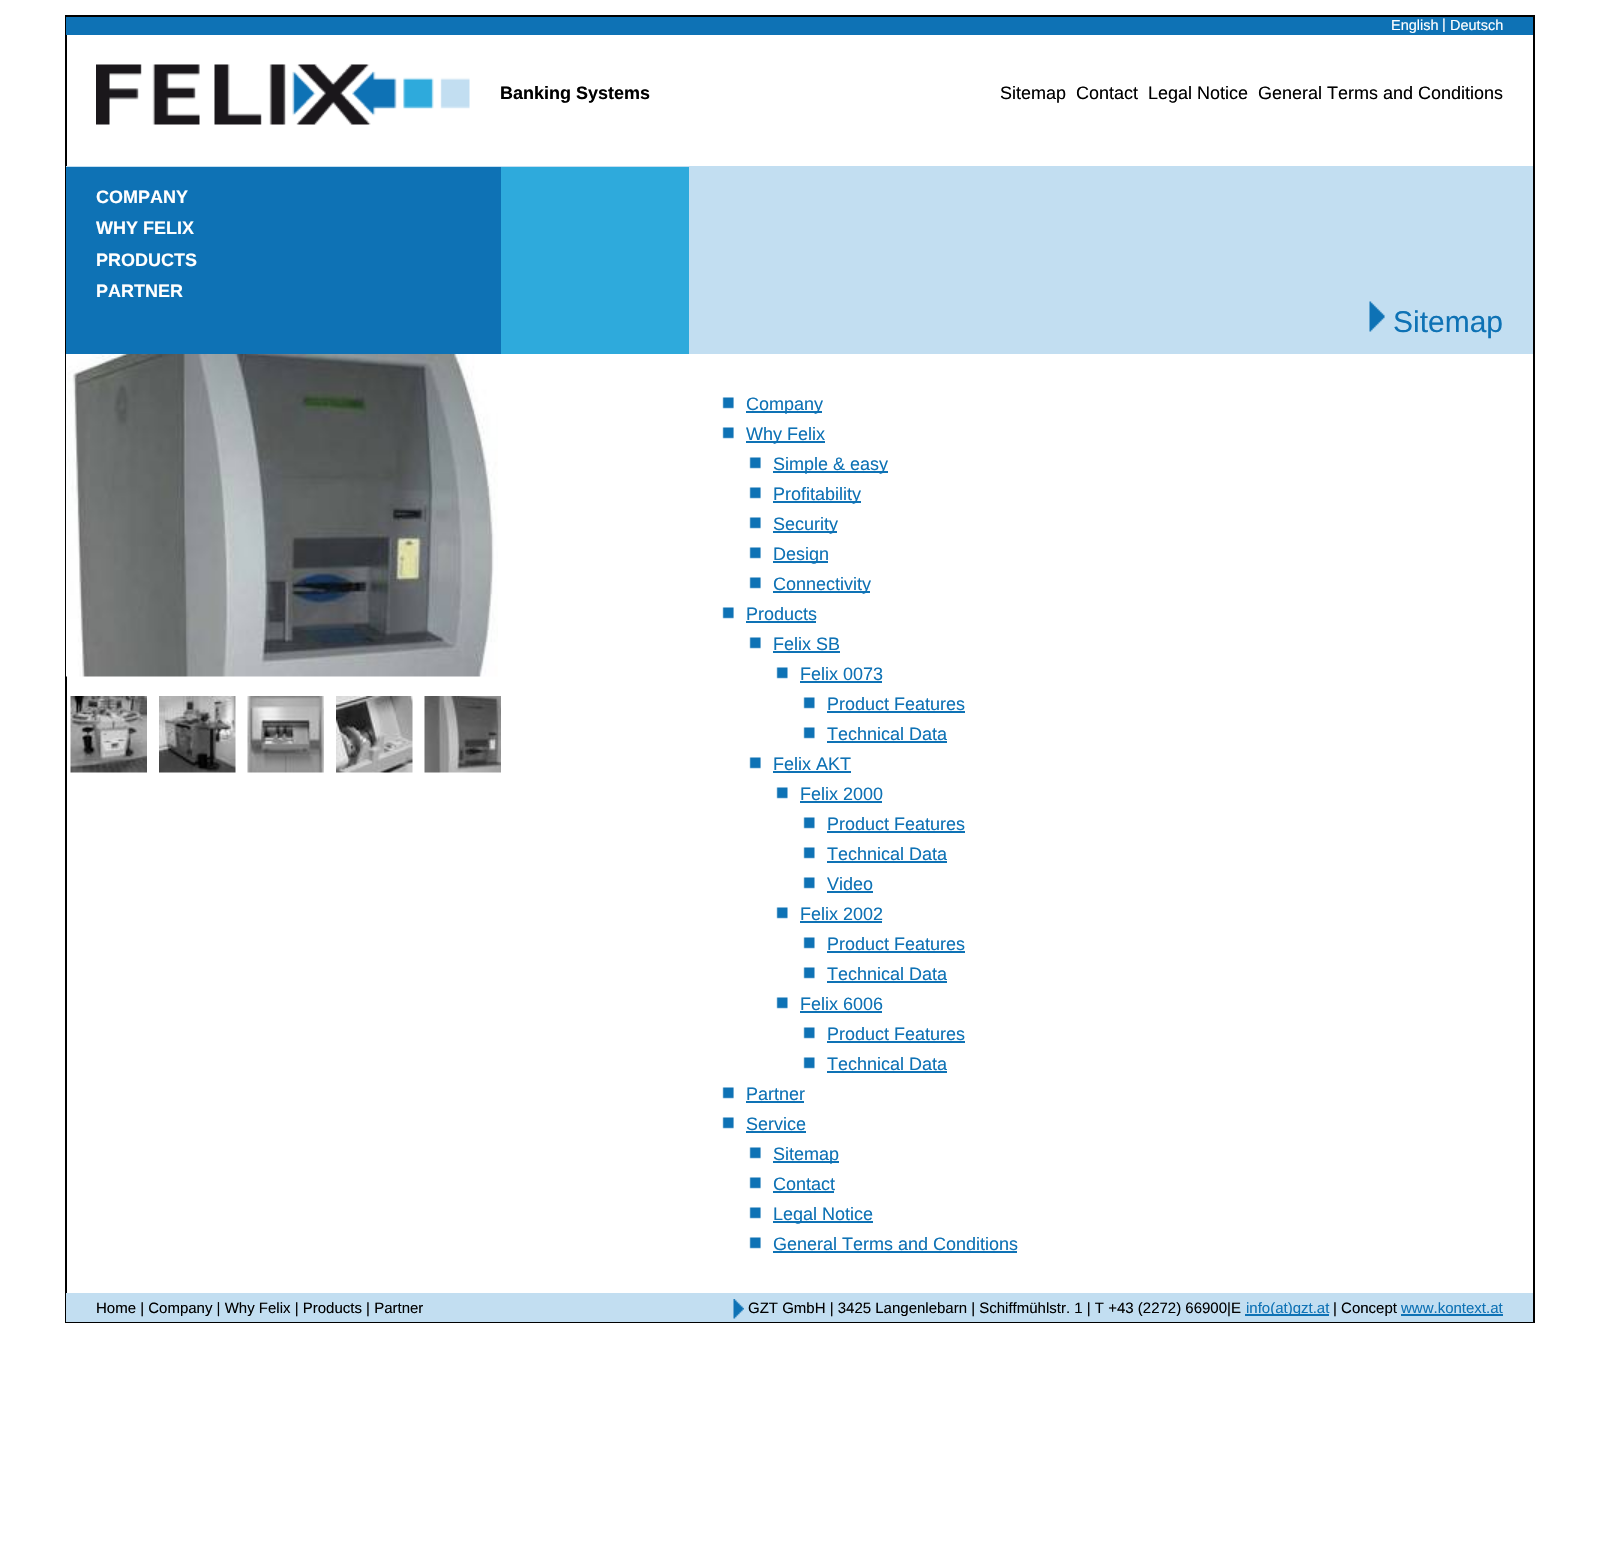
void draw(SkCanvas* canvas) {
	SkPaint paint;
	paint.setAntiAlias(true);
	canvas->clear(0xffffffff);
	paint.setStroke(true);
	paint.setStrokeWidth(2);
	paint.setColor(0xff000000);
	canvas->drawRect(SkRect::MakeXYWH(66, 16, 1468, 1306), paint);
	paint.setStroke(false);
	paint.setColor(0xff0e72b5);
	canvas->drawRect(SkRect::MakeXYWH(66, 17, 1467, 18), paint);
	SkFont f1(fontMgr->matchFamilyStyle("Liberation Sans", SkFontStyle::Normal()), 14.5);
	f1.setSubpixel(true);
	paint.setColor(0xffffffff);
	canvas->drawString("English", 1391, 30, f1, paint);
	canvas->drawString("|", 1442, 29, f1, paint);
	canvas->drawString("Deutsch", 1450, 30, f1, paint);
	canvas->drawImageRect(SkImages::DeferredFromEncodedData(SkData::MakeFromFileName("img1.png")), SkRect::MakeXYWH(96, 64, 374, 61), SkSamplingOptions());
	SkFont f2(fontMgr->matchFamilyStyle("Liberation Sans", SkFontStyle::Bold()), 18);
	f2.setSubpixel(true);
	paint.setColor(0xff000000);
	canvas->drawString("Banking Systems", 500, 99, f2, paint);
	SkFont f3(fontMgr->matchFamilyStyle("Liberation Sans", SkFontStyle::Normal()), 18);
	f3.setSubpixel(true);
	canvas->drawString("Sitemap", 1000, 99, f3, paint);
	canvas->drawString("Contact", 1076, 99, f3, paint);
	canvas->drawString("Legal Notice", 1148, 99, f3, paint);
	canvas->drawString("General Terms and Conditions", 1258, 99, f3, paint);
	paint.setColor(0xffc2def1);
	canvas->drawRect(SkRect::MakeXYWH(66, 166, 1467, 188), paint);
	paint.setColor(0xff0e72b5);
	canvas->drawRect(SkRect::MakeXYWH(66, 167, 435, 187), paint);
	paint.setColor(0xffffffff);
	canvas->drawString("COMPANY", 96, 203, f2, paint);
	canvas->drawString("WHY FELIX", 96, 234, f2, paint);
	canvas->drawString("PRODUCTS", 96, 266, f2, paint);
	canvas->drawString("PARTNER", 96, 297, f2, paint);
	canvas->drawImageRect(SkImages::DeferredFromEncodedData(SkData::MakeFromFileName("img2.png")), SkRect::MakeXYWH(66, 354, 432, 323), SkSamplingOptions());
	canvas->drawImageRect(SkImages::DeferredFromEncodedData(SkData::MakeFromFileName("img3.png")), SkRect::MakeXYWH(70, 696, 77, 77), SkSamplingOptions());
	canvas->drawImageRect(SkImages::DeferredFromEncodedData(SkData::MakeFromFileName("img4.png")), SkRect::MakeXYWH(159, 696, 77, 77), SkSamplingOptions());
	canvas->drawImageRect(SkImages::DeferredFromEncodedData(SkData::MakeFromFileName("img5.png")), SkRect::MakeXYWH(247, 696, 77, 77), SkSamplingOptions());
	canvas->drawImageRect(SkImages::DeferredFromEncodedData(SkData::MakeFromFileName("img6.png")), SkRect::MakeXYWH(336, 696, 77, 77), SkSamplingOptions());
	canvas->drawImageRect(SkImages::DeferredFromEncodedData(SkData::MakeFromFileName("img7.png")), SkRect::MakeXYWH(424, 696, 77, 77), SkSamplingOptions());
	paint.setColor(0xff2eaadc);
	canvas->drawRect(SkRect::MakeXYWH(501, 167, 188, 187), paint);
	canvas->drawImageRect(SkImages::DeferredFromEncodedData(SkData::MakeFromFileName("img8.png")), SkRect::MakeXYWH(1369, 301, 16, 31), SkSamplingOptions());
	SkFont f4(fontMgr->matchFamilyStyle("Liberation Sans", SkFontStyle::Normal()), 30);
	f4.setSubpixel(true);
	paint.setColor(0xff0e72b5);
	canvas->drawString("Sitemap", 1393, 332, f4, paint);
	canvas->drawImageRect(SkImages::DeferredFromEncodedData(SkData::MakeFromFileName("img9.png")), SkRect::MakeXYWH(722, 397, 12, 12), SkSamplingOptions());
	canvas->drawRect(SkRect::MakeXYWH(746, 411, 76, 2), paint);
	canvas->drawString("Company", 746, 410, f3, paint);
	canvas->drawImageRect(SkImages::DeferredFromEncodedData(SkData::MakeFromFileName("img9.png")), SkRect::MakeXYWH(722, 427, 12, 12), SkSamplingOptions());
	canvas->drawRect(SkRect::MakeXYWH(746, 441, 79, 2), paint);
	canvas->drawString("Why Felix", 746, 440, f3, paint);
	canvas->drawImageRect(SkImages::DeferredFromEncodedData(SkData::MakeFromFileName("img9.png")), SkRect::MakeXYWH(749, 457, 12, 12), SkSamplingOptions());
	canvas->drawRect(SkRect::MakeXYWH(773, 471, 115, 2), paint);
	canvas->drawString("Simple & easy", 773, 470, f3, paint);
	canvas->drawImageRect(SkImages::DeferredFromEncodedData(SkData::MakeFromFileName("img9.png")), SkRect::MakeXYWH(749, 487, 12, 12), SkSamplingOptions());
	canvas->drawRect(SkRect::MakeXYWH(773, 501, 88, 2), paint);
	canvas->drawString("Profitability", 773, 500, f3, paint);
	canvas->drawImageRect(SkImages::DeferredFromEncodedData(SkData::MakeFromFileName("img9.png")), SkRect::MakeXYWH(749, 517, 12, 12), SkSamplingOptions());
	canvas->drawRect(SkRect::MakeXYWH(773, 531, 64, 2), paint);
	canvas->drawString("Security", 773, 530, f3, paint);
	canvas->drawImageRect(SkImages::DeferredFromEncodedData(SkData::MakeFromFileName("img9.png")), SkRect::MakeXYWH(749, 547, 12, 12), SkSamplingOptions());
	canvas->drawRect(SkRect::MakeXYWH(773, 561, 55, 2), paint);
	canvas->drawString("Design", 773, 560, f3, paint);
	canvas->drawImageRect(SkImages::DeferredFromEncodedData(SkData::MakeFromFileName("img9.png")), SkRect::MakeXYWH(749, 577, 12, 12), SkSamplingOptions());
	canvas->drawRect(SkRect::MakeXYWH(773, 591, 97, 2), paint);
	canvas->drawString("Connectivity", 773, 590, f3, paint);
	canvas->drawImageRect(SkImages::DeferredFromEncodedData(SkData::MakeFromFileName("img9.png")), SkRect::MakeXYWH(722, 607, 12, 12), SkSamplingOptions());
	canvas->drawString("Products", 746, 620, f3, paint);
	canvas->drawRect(SkRect::MakeXYWH(746, 621, 70, 2), paint);
	canvas->drawImageRect(SkImages::DeferredFromEncodedData(SkData::MakeFromFileName("img9.png")), SkRect::MakeXYWH(749, 637, 12, 12), SkSamplingOptions());
	canvas->drawString("Felix SB", 773, 650, f3, paint);
	canvas->drawRect(SkRect::MakeXYWH(773, 651, 67, 2), paint);
	canvas->drawImageRect(SkImages::DeferredFromEncodedData(SkData::MakeFromFileName("img10.png")), SkRect::MakeXYWH(776, 667, 12, 12), SkSamplingOptions());
	canvas->drawString("Felix 0073", 800, 680, f3, paint);
	canvas->drawRect(SkRect::MakeXYWH(800, 681, 82, 2), paint);
	canvas->drawImageRect(SkImages::DeferredFromEncodedData(SkData::MakeFromFileName("img10.png")), SkRect::MakeXYWH(803, 697, 12, 12), SkSamplingOptions());
	canvas->drawString("Product Features", 827, 710, f3, paint);
	canvas->drawRect(SkRect::MakeXYWH(827, 711, 138, 2), paint);
	canvas->drawImageRect(SkImages::DeferredFromEncodedData(SkData::MakeFromFileName("img10.png")), SkRect::MakeXYWH(803, 727, 12, 12), SkSamplingOptions());
	canvas->drawString("Technical Data", 827, 740, f3, paint);
	canvas->drawRect(SkRect::MakeXYWH(827, 741, 120, 2), paint);
	canvas->drawImageRect(SkImages::DeferredFromEncodedData(SkData::MakeFromFileName("img9.png")), SkRect::MakeXYWH(749, 757, 12, 12), SkSamplingOptions());
	canvas->drawString("Felix AKT", 773, 770, f3, paint);
	canvas->drawRect(SkRect::MakeXYWH(773, 771, 78, 2), paint);
	canvas->drawImageRect(SkImages::DeferredFromEncodedData(SkData::MakeFromFileName("img10.png")), SkRect::MakeXYWH(776, 787, 12, 12), SkSamplingOptions());
	canvas->drawString("Felix 2000", 800, 800, f3, paint);
	canvas->drawRect(SkRect::MakeXYWH(800, 801, 82, 2), paint);
	canvas->drawImageRect(SkImages::DeferredFromEncodedData(SkData::MakeFromFileName("img10.png")), SkRect::MakeXYWH(803, 817, 12, 12), SkSamplingOptions());
	canvas->drawString("Product Features", 827, 830, f3, paint);
	canvas->drawRect(SkRect::MakeXYWH(827, 831, 138, 2), paint);
	canvas->drawImageRect(SkImages::DeferredFromEncodedData(SkData::MakeFromFileName("img10.png")), SkRect::MakeXYWH(803, 847, 12, 12), SkSamplingOptions());
	canvas->drawString("Technical Data", 827, 860, f3, paint);
	canvas->drawRect(SkRect::MakeXYWH(827, 861, 120, 2), paint);
	canvas->drawImageRect(SkImages::DeferredFromEncodedData(SkData::MakeFromFileName("img10.png")), SkRect::MakeXYWH(803, 877, 12, 12), SkSamplingOptions());
	canvas->drawString("Video", 827, 890, f3, paint);
	canvas->drawRect(SkRect::MakeXYWH(827, 891, 46, 2), paint);
	canvas->drawImageRect(SkImages::DeferredFromEncodedData(SkData::MakeFromFileName("img10.png")), SkRect::MakeXYWH(776, 907, 12, 12), SkSamplingOptions());
	canvas->drawString("Felix 2002", 800, 920, f3, paint);
	canvas->drawRect(SkRect::MakeXYWH(800, 921, 82, 2), paint);
	canvas->drawImageRect(SkImages::DeferredFromEncodedData(SkData::MakeFromFileName("img10.png")), SkRect::MakeXYWH(803, 937, 12, 12), SkSamplingOptions());
	canvas->drawString("Product Features", 827, 950, f3, paint);
	canvas->drawRect(SkRect::MakeXYWH(827, 951, 138, 2), paint);
	canvas->drawImageRect(SkImages::DeferredFromEncodedData(SkData::MakeFromFileName("img10.png")), SkRect::MakeXYWH(803, 967, 12, 12), SkSamplingOptions());
	canvas->drawString("Technical Data", 827, 980, f3, paint);
	canvas->drawRect(SkRect::MakeXYWH(827, 981, 120, 2), paint);
	canvas->drawImageRect(SkImages::DeferredFromEncodedData(SkData::MakeFromFileName("img10.png")), SkRect::MakeXYWH(776, 997, 12, 12), SkSamplingOptions());
	canvas->drawString("Felix 6006", 800, 1010, f3, paint);
	canvas->drawRect(SkRect::MakeXYWH(800, 1011, 82, 2), paint);
	canvas->drawImageRect(SkImages::DeferredFromEncodedData(SkData::MakeFromFileName("img10.png")), SkRect::MakeXYWH(803, 1027, 12, 12), SkSamplingOptions());
	canvas->drawString("Product Features", 827, 1040, f3, paint);
	canvas->drawRect(SkRect::MakeXYWH(827, 1041, 138, 2), paint);
	canvas->drawImageRect(SkImages::DeferredFromEncodedData(SkData::MakeFromFileName("img10.png")), SkRect::MakeXYWH(803, 1057, 12, 12), SkSamplingOptions());
	canvas->drawString("Technical Data", 827, 1070, f3, paint);
	canvas->drawRect(SkRect::MakeXYWH(827, 1071, 120, 2), paint);
	canvas->drawImageRect(SkImages::DeferredFromEncodedData(SkData::MakeFromFileName("img9.png")), SkRect::MakeXYWH(722, 1087, 12, 12), SkSamplingOptions());
	canvas->drawString("Partner", 746, 1100, f3, paint);
	canvas->drawRect(SkRect::MakeXYWH(746, 1101, 58, 2), paint);
	canvas->drawImageRect(SkImages::DeferredFromEncodedData(SkData::MakeFromFileName("img9.png")), SkRect::MakeXYWH(722, 1117, 12, 12), SkSamplingOptions());
	canvas->drawString("Service", 746, 1130, f3, paint);
	canvas->drawRect(SkRect::MakeXYWH(746, 1131, 60, 2), paint);
	canvas->drawImageRect(SkImages::DeferredFromEncodedData(SkData::MakeFromFileName("img9.png")), SkRect::MakeXYWH(749, 1147, 12, 12), SkSamplingOptions());
	canvas->drawRect(SkRect::MakeXYWH(773, 1161, 66, 2), paint);
	canvas->drawString("Sitemap", 773, 1160, f3, paint);
	canvas->drawImageRect(SkImages::DeferredFromEncodedData(SkData::MakeFromFileName("img9.png")), SkRect::MakeXYWH(749, 1177, 12, 12), SkSamplingOptions());
	canvas->drawString("Contact", 773, 1190, f3, paint);
	canvas->drawRect(SkRect::MakeXYWH(773, 1191, 61, 2), paint);
	canvas->drawImageRect(SkImages::DeferredFromEncodedData(SkData::MakeFromFileName("img9.png")), SkRect::MakeXYWH(749, 1207, 12, 12), SkSamplingOptions());
	canvas->drawRect(SkRect::MakeXYWH(773, 1221, 100, 2), paint);
	canvas->drawString("Legal Notice", 773, 1220, f3, paint);
	canvas->drawImageRect(SkImages::DeferredFromEncodedData(SkData::MakeFromFileName("img9.png")), SkRect::MakeXYWH(749, 1237, 12, 12), SkSamplingOptions());
	canvas->drawString("General Terms and Conditions", 773, 1250, f3, paint);
	canvas->drawRect(SkRect::MakeXYWH(773, 1251, 244, 2), paint);
	paint.setColor(0xffc2def1);
	canvas->drawRect(SkRect::MakeXYWH(66, 1293, 1467, 29), paint);
	SkFont f5(fontMgr->matchFamilyStyle("Liberation Sans", SkFontStyle::Normal()), 15);
	f5.setSubpixel(true);
	paint.setColor(0xff000000);
	canvas->drawString("Home | Company | Why Felix | Products | Partner", 96, 1313, f5, paint);
	canvas->drawImageRect(SkImages::DeferredFromEncodedData(SkData::MakeFromFileName("img11.png")), SkRect::MakeXYWH(733, 1299, 11, 20), SkSamplingOptions());
	canvas->drawString("GZT GmbH | 3425 Langenlebarn | Schiffmühlstr. 1 | T +43 (2272) 66900|E", 748, 1313, f5, paint);
	paint.setColor(0xff0e72b5);
	canvas->drawRect(SkRect::MakeXYWH(1245, 1314, 84, 2), paint);
	canvas->drawString("info(at)gzt.at", 1246, 1313, f5, paint);
	paint.setColor(0xff000000);
	canvas->drawString("| Concept", 1333, 1313, f5, paint);
	paint.setColor(0xff0e72b5);
	canvas->drawString("www.kontext.at", 1401, 1313, f5, paint);
	canvas->drawRect(SkRect::MakeXYWH(1401, 1314, 102, 2), paint);
}
